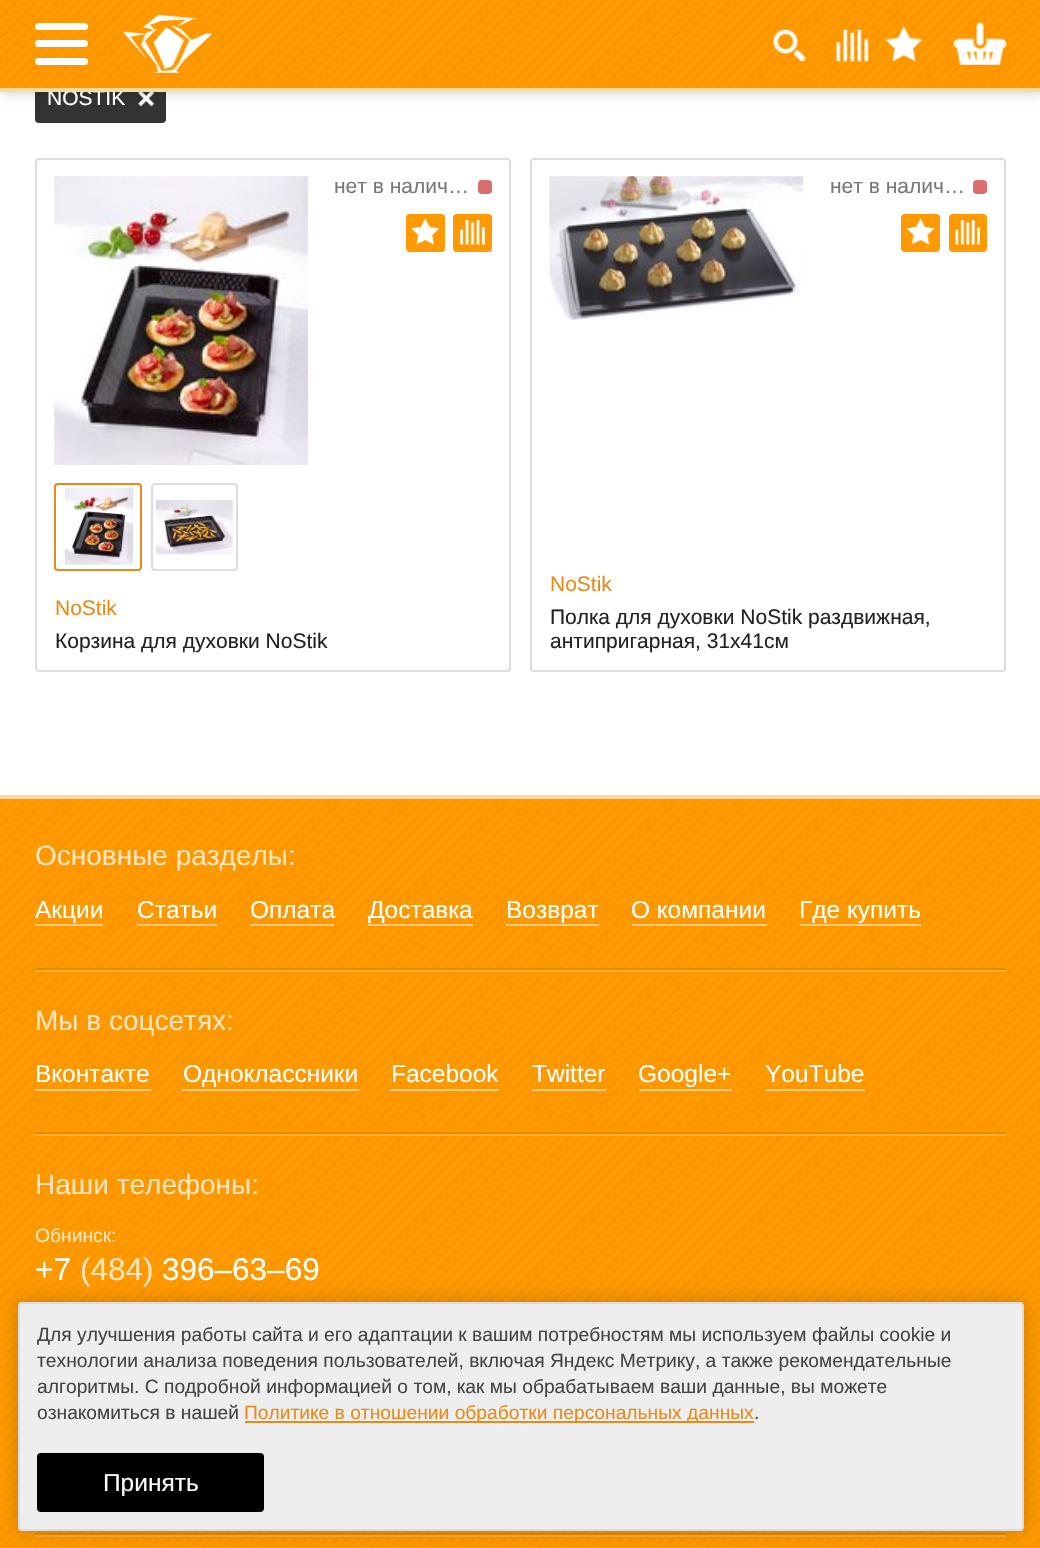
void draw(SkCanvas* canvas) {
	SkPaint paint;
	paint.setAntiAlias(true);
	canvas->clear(0xffffffff);
	paint.setColor(0xff333333);
	canvas->drawRoundRect(SkRect::MakeXYWH(35, 75, 131, 48), 4, 4, paint);
	canvas->drawImageRect(SkImages::DeferredFromEncodedData(SkData::MakeFromFileName("img7.png")), SkRect::MakeXYWH(138, 92, 16, 15), SkSamplingOptions());
	paint.setColor(0x40000000);
	paint.setMaskFilter(SkMaskFilter::MakeBlur(kNormal_SkBlurStyle, 6));
	canvas->drawRect(SkRect::MakeXYWH(0, 0, 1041, 91), paint);
	paint.setMaskFilter(nullptr);
	paint.setColor(0xffff9900);
	canvas->drawRect(SkRect::MakeXYWH(0, 0, 1040, 88), paint);
	canvas->drawImageRect(SkImages::DeferredFromEncodedData(SkData::MakeFromFileName("img1.png")), SkRect::MakeXYWH(0, 0, 1040, 88), SkSamplingOptions());
	SkFont f1(fontMgr->matchFamilyStyle("Liberation Sans", SkFontStyle::Normal()), 21);
	f1.setSubpixel(true);
	paint.setColor(0xffffffff);
	canvas->drawString("NOSTIK", 47, 105, f1, paint);
	paint.setColor(0xffffda98);
	canvas->drawRect(SkRect::MakeXYWH(0, 88, 1040, 4), paint);
	paint.setColor(0xffffffff);
	canvas->drawRoundRect(SkRect::MakeXYWH(35, 23, 53, 7), 3.5, 3.5, paint);
	canvas->drawRoundRect(SkRect::MakeXYWH(35, 40, 53, 7), 3.5, 3.5, paint);
	canvas->drawRoundRect(SkRect::MakeXYWH(35, 58, 53, 7), 3.5, 3.5, paint);
	canvas->drawImageRect(SkImages::DeferredFromEncodedData(SkData::MakeFromFileName("img2.png")), SkRect::MakeXYWH(122, 14, 90, 60), SkSamplingOptions());
	canvas->drawImageRect(SkImages::DeferredFromEncodedData(SkData::MakeFromFileName("img3.png")), SkRect::MakeXYWH(773, 29, 33, 33), SkSamplingOptions());
	canvas->drawImageRect(SkImages::DeferredFromEncodedData(SkData::MakeFromFileName("img4.png")), SkRect::MakeXYWH(836, 29, 33, 33), SkSamplingOptions());
	canvas->drawImageRect(SkImages::DeferredFromEncodedData(SkData::MakeFromFileName("img5.png")), SkRect::MakeXYWH(885, 26, 38, 36), SkSamplingOptions());
	canvas->drawImageRect(SkImages::DeferredFromEncodedData(SkData::MakeFromFileName("img6.png")), SkRect::MakeXYWH(953, 22, 54, 43), SkSamplingOptions());
	paint.setStroke(true);
	paint.setStrokeWidth(2);
	paint.setColor(0xffdddddd);
	canvas->drawRoundRect(SkRect::MakeXYWH(36, 159, 474, 512), 3, 3, paint);
	canvas->drawImageRect(SkImages::DeferredFromEncodedData(SkData::MakeFromFileName("img8.png")), SkRect::MakeXYWH(54, 176, 254, 289), SkSamplingOptions());
	paint.setStroke(false);
	paint.setColor(0xff777777);
	canvas->drawString("нет в налич…", 334, 193, f1, paint);
	paint.setColor(0xffda6d6d);
	canvas->drawRoundRect(SkRect::MakeXYWH(478, 180, 14, 14), 4, 4, paint);
	paint.setColor(0xffff9900);
	canvas->drawRoundRect(SkRect::MakeXYWH(406, 214, 39, 38), 4, 4, paint);
	canvas->drawImageRect(SkImages::DeferredFromEncodedData(SkData::MakeFromFileName("img9.png")), SkRect::MakeXYWH(411, 218, 29, 27), SkSamplingOptions());
	canvas->drawRoundRect(SkRect::MakeXYWH(453, 214, 39, 38), 4, 4, paint);
	canvas->drawImageRect(SkImages::DeferredFromEncodedData(SkData::MakeFromFileName("img10.png")), SkRect::MakeXYWH(460, 220, 25, 25), SkSamplingOptions());
	paint.setStroke(true);
	paint.setColor(0xffe68b19);
	canvas->drawRoundRect(SkRect::MakeXYWH(55, 484, 86, 86), 3, 3, paint);
	canvas->drawImageRect(SkImages::DeferredFromEncodedData(SkData::MakeFromFileName("img11.png")), SkRect::MakeXYWH(64, 487, 69, 78), SkSamplingOptions());
	paint.setColor(0xffdddddd);
	canvas->drawRoundRect(SkRect::MakeXYWH(152, 484, 85, 86), 3, 3, paint);
	canvas->drawImageRect(SkImages::DeferredFromEncodedData(SkData::MakeFromFileName("img12.png")), SkRect::MakeXYWH(155, 500, 78, 55), SkSamplingOptions());
	paint.setStroke(false);
	paint.setColor(0xffe68b19);
	canvas->drawString("NoStik", 55, 615, f1, paint);
	paint.setColor(0xff222222);
	canvas->drawString("Корзина для духовки NoStik", 55, 648, f1, paint);
	paint.setStroke(true);
	paint.setColor(0xffdddddd);
	canvas->drawRoundRect(SkRect::MakeXYWH(531, 159, 474, 512), 3, 3, paint);
	canvas->drawImageRect(SkImages::DeferredFromEncodedData(SkData::MakeFromFileName("img13.png")), SkRect::MakeXYWH(549, 176, 255, 144), SkSamplingOptions());
	paint.setStroke(false);
	paint.setColor(0xff777777);
	canvas->drawString("нет в налич…", 830, 193, f1, paint);
	paint.setColor(0xffda6d6d);
	canvas->drawRoundRect(SkRect::MakeXYWH(973, 180, 14, 14), 4, 4, paint);
	paint.setColor(0xffff9900);
	canvas->drawRoundRect(SkRect::MakeXYWH(901, 214, 39, 38), 4, 4, paint);
	canvas->drawImageRect(SkImages::DeferredFromEncodedData(SkData::MakeFromFileName("img14.png")), SkRect::MakeXYWH(906, 218, 29, 27), SkSamplingOptions());
	canvas->drawRoundRect(SkRect::MakeXYWH(949, 214, 38, 38), 4, 4, paint);
	canvas->drawImageRect(SkImages::DeferredFromEncodedData(SkData::MakeFromFileName("img15.png")), SkRect::MakeXYWH(955, 220, 25, 25), SkSamplingOptions());
	paint.setColor(0xffe68b19);
	canvas->drawString("NoStik", 550, 591, f1, paint);
	paint.setColor(0xff222222);
	canvas->drawString("Полка для духовки NoStik раздвижная,", 550, 624, f1, paint);
	canvas->drawString("антипригарная, 31x41см", 550, 648, f1, paint);
	paint.setColor(0xffff9900);
	canvas->drawRect(SkRect::MakeXYWH(0, 799, 1040, 749), paint);
	canvas->drawImageRect(SkImages::DeferredFromEncodedData(SkData::MakeFromFileName("img16.png")), SkRect::MakeXYWH(0, 794, 1040, 754), SkSamplingOptions());
	paint.setColor(0xffffda98);
	canvas->drawRect(SkRect::MakeXYWH(0, 795, 1040, 4), paint);
	SkFont f2(fontMgr->matchFamilyStyle("Liberation Sans", SkFontStyle::Normal()), 28);
	f2.setSubpixel(true);
	paint.setColor(0xffffe5bf);
	canvas->drawString("Основные разделы:", 35, 865, f2, paint);
	SkFont f3(fontMgr->matchFamilyStyle("Liberation Sans", SkFontStyle::Normal()), 24.5);
	f3.setSubpixel(true);
	paint.setColor(0xffffffff);
	canvas->drawString("Акции", 35, 918, f3, paint);
	paint.setColor(0x80ffffff);
	canvas->drawRect(SkRect::MakeXYWH(35, 924, 68, 2), paint);
	paint.setColor(0xffffffff);
	canvas->drawString("Статьи", 137, 918, f3, paint);
	paint.setColor(0x80ffffff);
	canvas->drawRect(SkRect::MakeXYWH(137, 924, 80, 2), paint);
	paint.setColor(0xffffffff);
	canvas->drawString("Оплата", 250, 918, f3, paint);
	paint.setColor(0x80ffffff);
	canvas->drawRect(SkRect::MakeXYWH(250, 924, 84, 2), paint);
	paint.setColor(0xffffffff);
	canvas->drawString("Доставка", 368, 918, f3, paint);
	paint.setColor(0x80ffffff);
	canvas->drawRect(SkRect::MakeXYWH(368, 924, 105, 2), paint);
	paint.setColor(0xffffffff);
	canvas->drawString("Возврат", 506, 918, f3, paint);
	paint.setColor(0x80ffffff);
	canvas->drawRect(SkRect::MakeXYWH(506, 924, 93, 2), paint);
	paint.setColor(0xffffffff);
	canvas->drawString("О компании", 631, 918, f3, paint);
	paint.setColor(0x80ffffff);
	canvas->drawRect(SkRect::MakeXYWH(632, 924, 135, 2), paint);
	paint.setColor(0xffffffff);
	canvas->drawString("Где купить", 799, 918, f3, paint);
	paint.setColor(0x80ffffff);
	canvas->drawRect(SkRect::MakeXYWH(800, 924, 121, 2), paint);
	paint.setColor(0xffe68a00);
	canvas->drawRect(SkRect::MakeXYWH(35, 968, 971, 2), paint);
	paint.setColor(0xffffad33);
	canvas->drawRect(SkRect::MakeXYWH(35, 970, 971, 2), paint);
	paint.setColor(0xffffe5bf);
	canvas->drawString("Мы в соцсетях:", 35, 1030, f2, paint);
	paint.setColor(0xffffffff);
	canvas->drawString("Вконтакте", 35, 1082, f3, paint);
	paint.setColor(0x80ffffff);
	canvas->drawRect(SkRect::MakeXYWH(35, 1089, 116, 2), paint);
	paint.setColor(0xffffffff);
	canvas->drawString("Одноклассники", 183, 1082, f3, paint);
	paint.setColor(0x80ffffff);
	canvas->drawRect(SkRect::MakeXYWH(182, 1089, 177, 2), paint);
	paint.setColor(0xffffffff);
	canvas->drawString("Facebook", 391, 1082, f3, paint);
	paint.setColor(0x80ffffff);
	canvas->drawRect(SkRect::MakeXYWH(390, 1089, 109, 2), paint);
	paint.setColor(0xffffffff);
	canvas->drawString("Twitter", 532, 1082, f3, paint);
	paint.setColor(0x80ffffff);
	canvas->drawRect(SkRect::MakeXYWH(532, 1089, 74, 2), paint);
	paint.setColor(0xffffffff);
	canvas->drawString("Google+", 638, 1082, f3, paint);
	paint.setColor(0x80ffffff);
	canvas->drawRect(SkRect::MakeXYWH(639, 1089, 93, 2), paint);
	paint.setColor(0xffffffff);
	canvas->drawString("YouTube", 765, 1082, f3, paint);
	paint.setColor(0x80ffffff);
	canvas->drawRect(SkRect::MakeXYWH(765, 1089, 100, 2), paint);
	paint.setColor(0xffe68a00);
	canvas->drawRect(SkRect::MakeXYWH(35, 1132, 971, 2), paint);
	paint.setColor(0xffffad33);
	canvas->drawRect(SkRect::MakeXYWH(35, 1134, 971, 2), paint);
	paint.setColor(0xffffe5bf);
	canvas->drawString("Наши телефоны:", 35, 1194, f2, paint);
	SkFont f4(fontMgr->matchFamilyStyle("Liberation Sans", SkFontStyle::Normal()), 19.25);
	f4.setSubpixel(true);
	canvas->drawString("Обнинск:", 35, 1242, f4, paint);
	SkFont f5(fontMgr->matchFamilyStyle("Liberation Sans", SkFontStyle::Normal()), 31.5);
	f5.setSubpixel(true);
	paint.setColor(0xffffffff);
	canvas->drawString("+7", 35, 1280, f5, paint);
	paint.setColor(0xffffe5bf);
	canvas->drawString("(484)", 80, 1280, f5, paint);
	paint.setColor(0xffffffff);
	canvas->drawString("396‒63‒69", 162, 1280, f5, paint);
	paint.setColor(0xffffad33);
	canvas->drawRect(SkRect::MakeXYWH(35, 1535, 971, 2), paint);
	paint.setColor(0xffe68a00);
	canvas->drawRect(SkRect::MakeXYWH(35, 1533, 971, 2), paint);
	paint.setColor(0x33000000);
	paint.setMaskFilter(SkMaskFilter::MakeBlur(kNormal_SkBlurStyle, 9));
	canvas->drawRoundRect(SkRect::MakeXYWH(18, 1302, 1006, 229), 4, 4, paint);
	paint.setMaskFilter(nullptr);
	paint.setColor(0xffeeeeee);
	canvas->drawRoundRect(SkRect::MakeXYWH(19, 1303, 1004, 227), 3, 3, paint);
	paint.setStroke(true);
	paint.setColor(0xffdddddd);
	canvas->drawRoundRect(SkRect::MakeXYWH(19, 1303, 1004, 227), 3, 3, paint);
	paint.setStroke(false);
	paint.setColor(0xff444444);
	canvas->drawString("Для улучшения работы сайта и его адаптации к вашим потребностям мы используем файлы cookie и", 37, 1341, f4, paint);
	canvas->drawString("технологии анализа поведения пользователей, включая Яндекс Метрику, а также рекомендательные", 37, 1367, f4, paint);
	canvas->drawString("алгоритмы. С подробной информацией о том, как мы обрабатываем ваши данные, вы можете", 37, 1393, f4, paint);
	canvas->drawString("ознакомиться в нашей", 37, 1419, f4, paint);
	paint.setColor(0xffe68b19);
	canvas->drawRect(SkRect::MakeXYWH(245, 1421, 509, 2), paint);
	canvas->drawString("Политике в отношении обработки персональных данных", 244, 1419, f4, paint);
	paint.setColor(0xff444444);
	canvas->drawString(".", 754, 1419, f4, paint);
	paint.setColor(0xff000000);
	canvas->drawRoundRect(SkRect::MakeXYWH(37, 1453, 227, 59), 4, 4, paint);
	paint.setColor(0xffffffff);
	canvas->drawString("Принять", 103, 1491, f3, paint);
}
